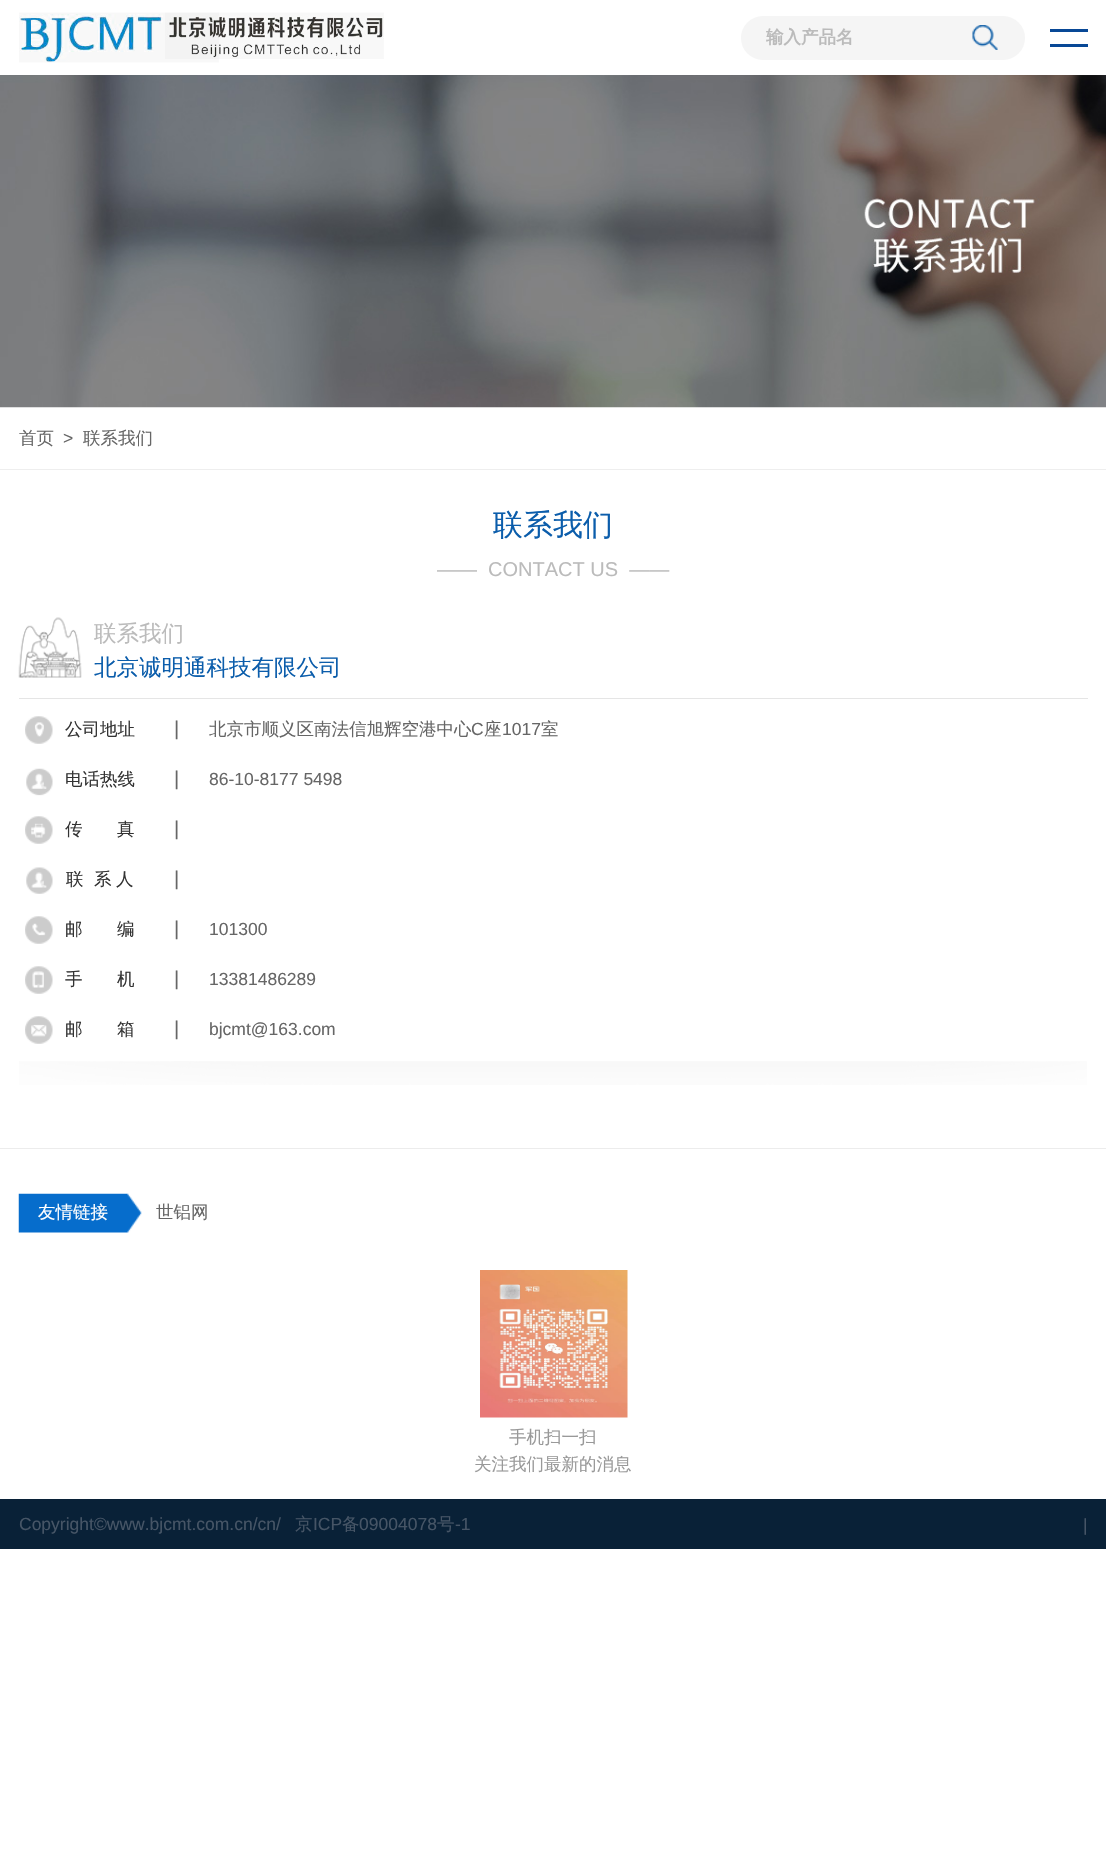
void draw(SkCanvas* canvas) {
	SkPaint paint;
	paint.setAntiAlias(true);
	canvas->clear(0xffffffff);
	canvas->drawImageRect(SkImages::DeferredFromEncodedData(SkData::MakeFromFileName("img1.png")), SkRect::MakeXYWH(19, 12, 365, 51), SkSamplingOptions());
	paint.setColor(0xfff5f5f5);
	canvas->drawRoundRect(SkRect::MakeXYWH(741, 16, 284, 44), 22, 22, paint);
	SkFont f1(fontMgr->matchFamilyStyle("WenQuanYi Zen Hei", SkFontStyle::Bold()), 17.5);
	f1.setSubpixel(true);
	paint.setColor(0xffbbbbbb);
	canvas->drawString("输入产品名", 766, 43, f1, paint);
	canvas->drawImageRect(SkImages::DeferredFromEncodedData(SkData::MakeFromFileName("img2.png")), SkRect::MakeXYWH(972, 25, 26, 25), SkSamplingOptions());
	paint.setColor(0xff084896);
	canvas->drawRect(SkRect::MakeXYWH(1050, 29, 38, 3), paint);
	canvas->drawRect(SkRect::MakeXYWH(1050, 44, 38, 3), paint);
	canvas->drawImageRect(SkImages::DeferredFromEncodedData(SkData::MakeFromFileName("img3.png")), SkRect::MakeXYWH(0, 75, 1106, 333), SkSamplingOptions());
	paint.setColor(0xffeeeeee);
	canvas->drawRect(SkRect::MakeXYWH(0, 469, 1106, 1), paint);
	SkFont f2(fontMgr->matchFamilyStyle("WenQuanYi Zen Hei", SkFontStyle(500, SkFontStyle::kNormal_Width, SkFontStyle::kUpright_Slant)), 17.5);
	f2.setSubpixel(true);
	paint.setColor(0xff666666);
	canvas->drawString("首页", 19, 444, f2, paint);
	SkFont f3(fontMgr->matchFamilyStyle("Liberation Sans", SkFontStyle::Normal()), 17.5);
	f3.setSubpixel(true);
	canvas->drawString(">", 63, 444, f3, paint);
	canvas->drawString("联系我们", 83, 444, f2, paint);
	SkFont f4(fontMgr->matchFamilyStyle("WenQuanYi Zen Hei", SkFontStyle(500, SkFontStyle::kNormal_Width, SkFontStyle::kUpright_Slant)), 30);
	f4.setSubpixel(true);
	paint.setColor(0xff0b5dab);
	canvas->drawString("联系我们", 493, 535, f4, paint);
	SkFont f5(fontMgr->matchFamilyStyle("Liberation Sans", SkFontStyle::Normal()), 20);
	f5.setSubpixel(true);
	paint.setColor(0xffbbbbbb);
	canvas->drawString("——  CONTACT US  ——", 437, 576, f5, paint);
	paint.setColor(0xffe5e5e5);
	canvas->drawRect(SkRect::MakeXYWH(19, 698, 1069, 1), paint);
	canvas->drawImageRect(SkImages::DeferredFromEncodedData(SkData::MakeFromFileName("img4.png")), SkRect::MakeXYWH(18, 617, 64, 61), SkSamplingOptions());
	SkFont f6(fontMgr->matchFamilyStyle("WenQuanYi Zen Hei", SkFontStyle(500, SkFontStyle::kNormal_Width, SkFontStyle::kUpright_Slant)), 22.5);
	f6.setSubpixel(true);
	paint.setColor(0xffbbbbbb);
	canvas->drawString("联系我们", 94, 641, f6, paint);
	paint.setColor(0xff0b5dab);
	canvas->drawString("北京诚明通科技有限公司", 94, 675, f6, paint);
	canvas->drawImageRect(SkImages::DeferredFromEncodedData(SkData::MakeFromFileName("img5.png")), SkRect::MakeXYWH(25, 716, 28, 28), SkSamplingOptions());
	paint.setColor(0xff333333);
	canvas->drawString("公司地址", 65, 735, f2, paint);
	paint.setColor(0xff666666);
	canvas->drawString("|", 174, 735, f5, paint);
	canvas->drawString("北京市顺义区南法信旭辉空港中心", 209, 735, f2, paint);
	canvas->drawString("C", 471, 735, f3, paint);
	canvas->drawString("座", 484, 735, f2, paint);
	canvas->drawString("1017", 502, 735, f3, paint);
	canvas->drawString("室", 541, 735, f2, paint);
	canvas->drawImageRect(SkImages::DeferredFromEncodedData(SkData::MakeFromFileName("img6.png")), SkRect::MakeXYWH(26, 768, 27, 28), SkSamplingOptions());
	paint.setColor(0xff333333);
	canvas->drawString("电话热线", 65, 785, f2, paint);
	paint.setColor(0xff666666);
	canvas->drawString("|", 174, 785, f5, paint);
	canvas->drawString("86-10-8177 5498", 209, 785, f3, paint);
	canvas->drawImageRect(SkImages::DeferredFromEncodedData(SkData::MakeFromFileName("img7.png")), SkRect::MakeXYWH(25, 816, 28, 28), SkSamplingOptions());
	paint.setColor(0xff333333);
	canvas->drawString("传", 65, 835, f2, paint);
	canvas->drawString("真", 117, 835, f2, paint);
	paint.setColor(0xff666666);
	canvas->drawString("|", 174, 835, f5, paint);
	canvas->drawImageRect(SkImages::DeferredFromEncodedData(SkData::MakeFromFileName("img8.png")), SkRect::MakeXYWH(26, 867, 27, 27), SkSamplingOptions());
	paint.setColor(0xff333333);
	canvas->drawString("联", 66, 885, f2, paint);
	canvas->drawString("系", 94, 885, f2, paint);
	canvas->drawString("人", 116, 885, f2, paint);
	paint.setColor(0xff666666);
	canvas->drawString("|", 174, 885, f5, paint);
	canvas->drawImageRect(SkImages::DeferredFromEncodedData(SkData::MakeFromFileName("img9.png")), SkRect::MakeXYWH(25, 916, 28, 28), SkSamplingOptions());
	paint.setColor(0xff333333);
	canvas->drawString("邮", 65, 935, f2, paint);
	canvas->drawString("编", 117, 935, f2, paint);
	paint.setColor(0xff666666);
	canvas->drawString("|", 174, 935, f5, paint);
	canvas->drawString("101300", 209, 935, f3, paint);
	canvas->drawImageRect(SkImages::DeferredFromEncodedData(SkData::MakeFromFileName("img10.png")), SkRect::MakeXYWH(25, 966, 28, 28), SkSamplingOptions());
	paint.setColor(0xff333333);
	canvas->drawString("手", 65, 985, f2, paint);
	canvas->drawString("机", 117, 985, f2, paint);
	paint.setColor(0xff666666);
	canvas->drawString("|", 174, 985, f5, paint);
	canvas->drawString("13381486289", 209, 985, f3, paint);
	canvas->drawImageRect(SkImages::DeferredFromEncodedData(SkData::MakeFromFileName("img11.png")), SkRect::MakeXYWH(25, 1016, 28, 28), SkSamplingOptions());
	paint.setColor(0xff333333);
	canvas->drawString("邮", 65, 1035, f2, paint);
	canvas->drawString("箱", 117, 1035, f2, paint);
	paint.setColor(0xff666666);
	canvas->drawString("|", 174, 1035, f5, paint);
	canvas->drawString("bjcmt@163.com", 209, 1035, f3, paint);
	canvas->drawImageRect(SkImages::DeferredFromEncodedData(SkData::MakeFromFileName("img12.png")), SkRect::MakeXYWH(19, 1061, 1068, 24), SkSamplingOptions());
	paint.setColor(0xffececec);
	canvas->drawRect(SkRect::MakeXYWH(0, 1148, 1106, 1), paint);
	canvas->drawImageRect(SkImages::DeferredFromEncodedData(SkData::MakeFromFileName("img13.png")), SkRect::MakeXYWH(18, 1193, 124, 40), SkSamplingOptions());
	paint.setColor(0xffffffff);
	canvas->drawString("友情链接", 38, 1218, f2, paint);
	paint.setColor(0xff666666);
	canvas->drawString("世铝网", 156, 1218, f2, paint);
	canvas->drawImageRect(SkImages::DeferredFromEncodedData(SkData::MakeFromFileName("img14.png")), SkRect::MakeXYWH(480, 1270, 148, 148), SkSamplingOptions());
	paint.setColor(0xff999999);
	canvas->drawString("手机扫一扫", 509, 1443, f2, paint);
	canvas->drawString("关注我们最新的消息", 474, 1470, f2, paint);
	paint.setColor(0xff092137);
	canvas->drawRect(SkRect::MakeXYWH(0, 1499, 1106, 50), paint);
	paint.setColor(0xff465566);
	canvas->drawString("Copyright©www.bjcmt.com.cn/cn/", 19, 1530, f3, paint);
	canvas->drawString("京", 295, 1530, f2, paint);
	canvas->drawString("ICP", 313, 1530, f3, paint);
	canvas->drawString("备", 342, 1530, f2, paint);
	canvas->drawString("09004078", 359, 1530, f3, paint);
	canvas->drawString("号", 437, 1530, f2, paint);
	canvas->drawString("-1", 455, 1530, f3, paint);
	canvas->drawString("|", 1083, 1531, f3, paint);
}
